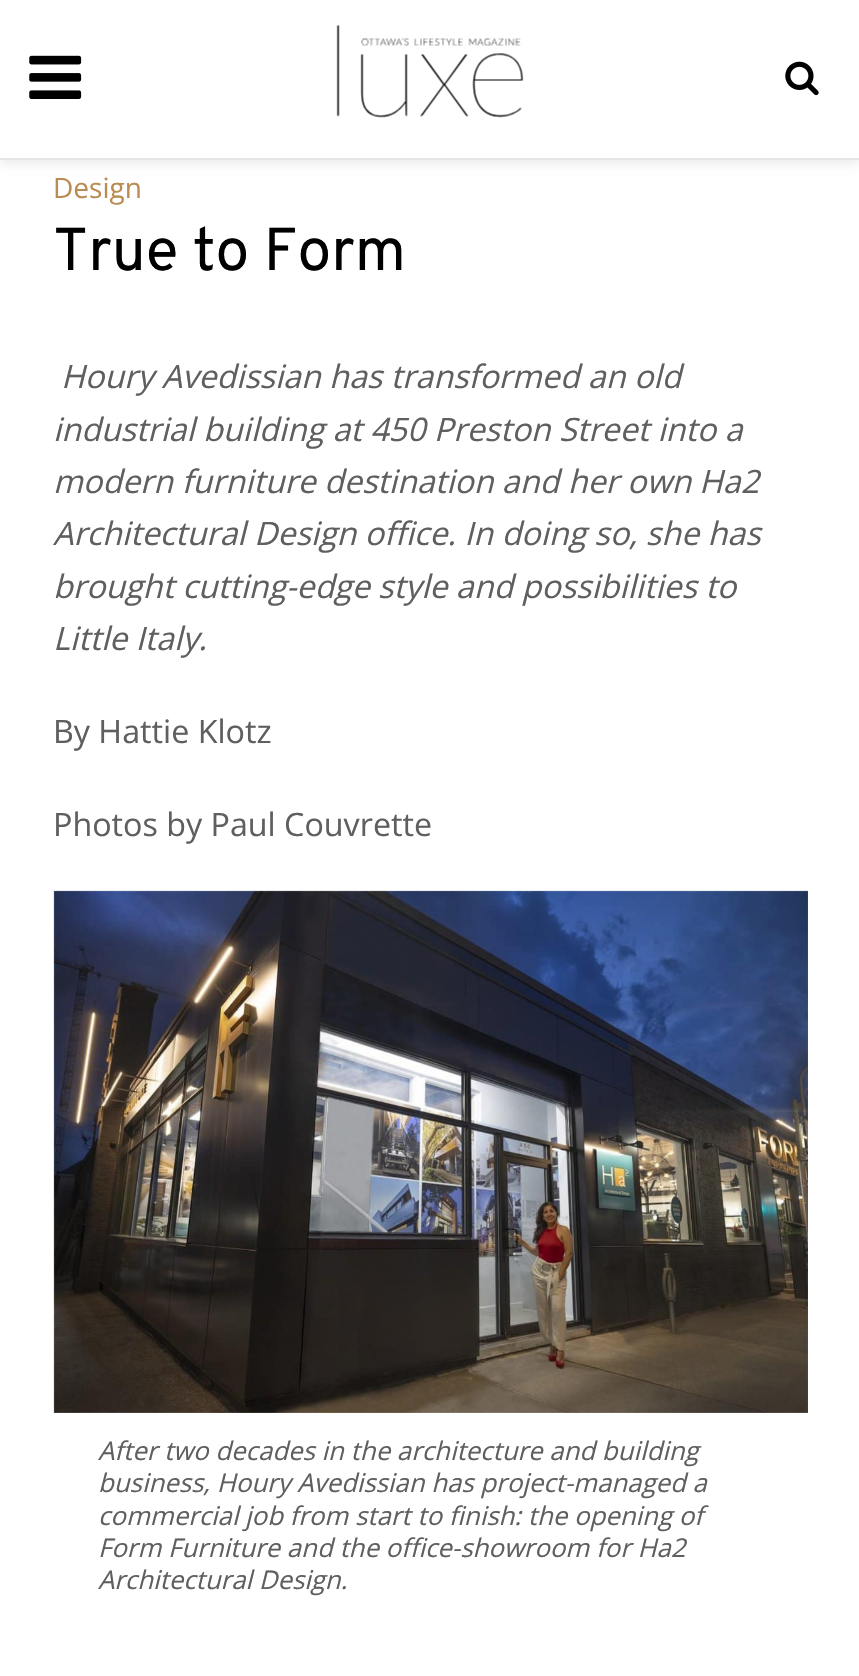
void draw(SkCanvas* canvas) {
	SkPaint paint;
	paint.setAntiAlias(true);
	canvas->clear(0xffffffff);
	paint.setColor(0x12000000);
	paint.setMaskFilter(SkMaskFilter::MakeBlur(kNormal_SkBlurStyle, 4.5));
	canvas->drawRect(SkRect::MakeXYWH(0, 5, 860, 159), paint);
	paint.setMaskFilter(nullptr);
	paint.setColor(0xffffffff);
	canvas->drawRect(SkRect::MakeXYWH(0, 0, 859, 158), paint);
	paint.setColor(0xffe6e6e6);
	canvas->drawRect(SkRect::MakeXYWH(0, 158, 859, 2), paint);
	canvas->drawImageRect(SkImages::DeferredFromEncodedData(SkData::MakeFromFileName("img1.png")), SkRect::MakeXYWH(29, 55, 53, 44), SkSamplingOptions());
	canvas->drawImageRect(SkImages::DeferredFromEncodedData(SkData::MakeFromFileName("img2.png")), SkRect::MakeXYWH(336, 25, 188, 93), SkSamplingOptions());
	canvas->drawImageRect(SkImages::DeferredFromEncodedData(SkData::MakeFromFileName("img3.png")), SkRect::MakeXYWH(785, 61, 34, 35), SkSamplingOptions());
	SkFont f1(fontMgr->matchFamilyStyle("Open Sans", SkFontStyle::Normal()), 28);
	f1.setSubpixel(true);
	paint.setColor(0xffb98c51);
	canvas->drawString("Design", 53, 198, f1, paint);
	SkFont f2(fontMgr->matchFamilyStyle("Overpass", SkFontStyle::Normal()), 60.5);
	f2.setSubpixel(true);
	paint.setColor(0xff000000);
	canvas->drawString("True to Form", 53, 270, f2, paint);
	SkFont f3(fontMgr->matchFamilyStyle("Open Sans", SkFontStyle::Italic()), 32.25);
	f3.setSubpixel(true);
	paint.setColor(0xff5f5f5f);
	canvas->drawString("Houry Avedissian has transformed an old", 61, 388, f3, paint);
	canvas->drawString("industrial building at 450 Preston Street into a", 53, 441, f3, paint);
	canvas->drawString("modern furniture destination and her own", 53, 493, f3, paint);
	canvas->drawString("Ha2", 699, 493, f3, paint);
	canvas->drawString("Architectural Design office. In doing so, she has", 53, 545, f3, paint);
	canvas->drawString("brought cutting-edge style and possibilities to", 53, 598, f3, paint);
	canvas->drawString("Little Italy.", 53, 650, f3, paint);
	SkFont f4(fontMgr->matchFamilyStyle("Open Sans", SkFontStyle::Normal()), 32.25);
	f4.setSubpixel(true);
	canvas->drawString("By Hattie Klotz", 53, 743, f4, paint);
	canvas->drawString("Photos by Paul Couvrette", 53, 836, f4, paint);
	canvas->drawImageRect(SkImages::DeferredFromEncodedData(SkData::MakeFromFileName("img4.png")), SkRect::MakeXYWH(53, 890, 755, 523), SkSamplingOptions());
	SkFont f5(fontMgr->matchFamilyStyle("Open Sans", SkFontStyle::Italic()), 25.8);
	f5.setSubpixel(true);
	canvas->drawString("After two decades in the architecture and building", 98, 1460, f5, paint);
	canvas->drawString("business, Houry Avedissian has project-managed a", 98, 1492, f5, paint);
	canvas->drawString("commercial job from start to finish: the opening of", 98, 1525, f5, paint);
	canvas->drawString("Form Furniture and the office-showroom for Ha2", 98, 1557, f5, paint);
	canvas->drawString("Architectural Design.", 98, 1589, f5, paint);
}
